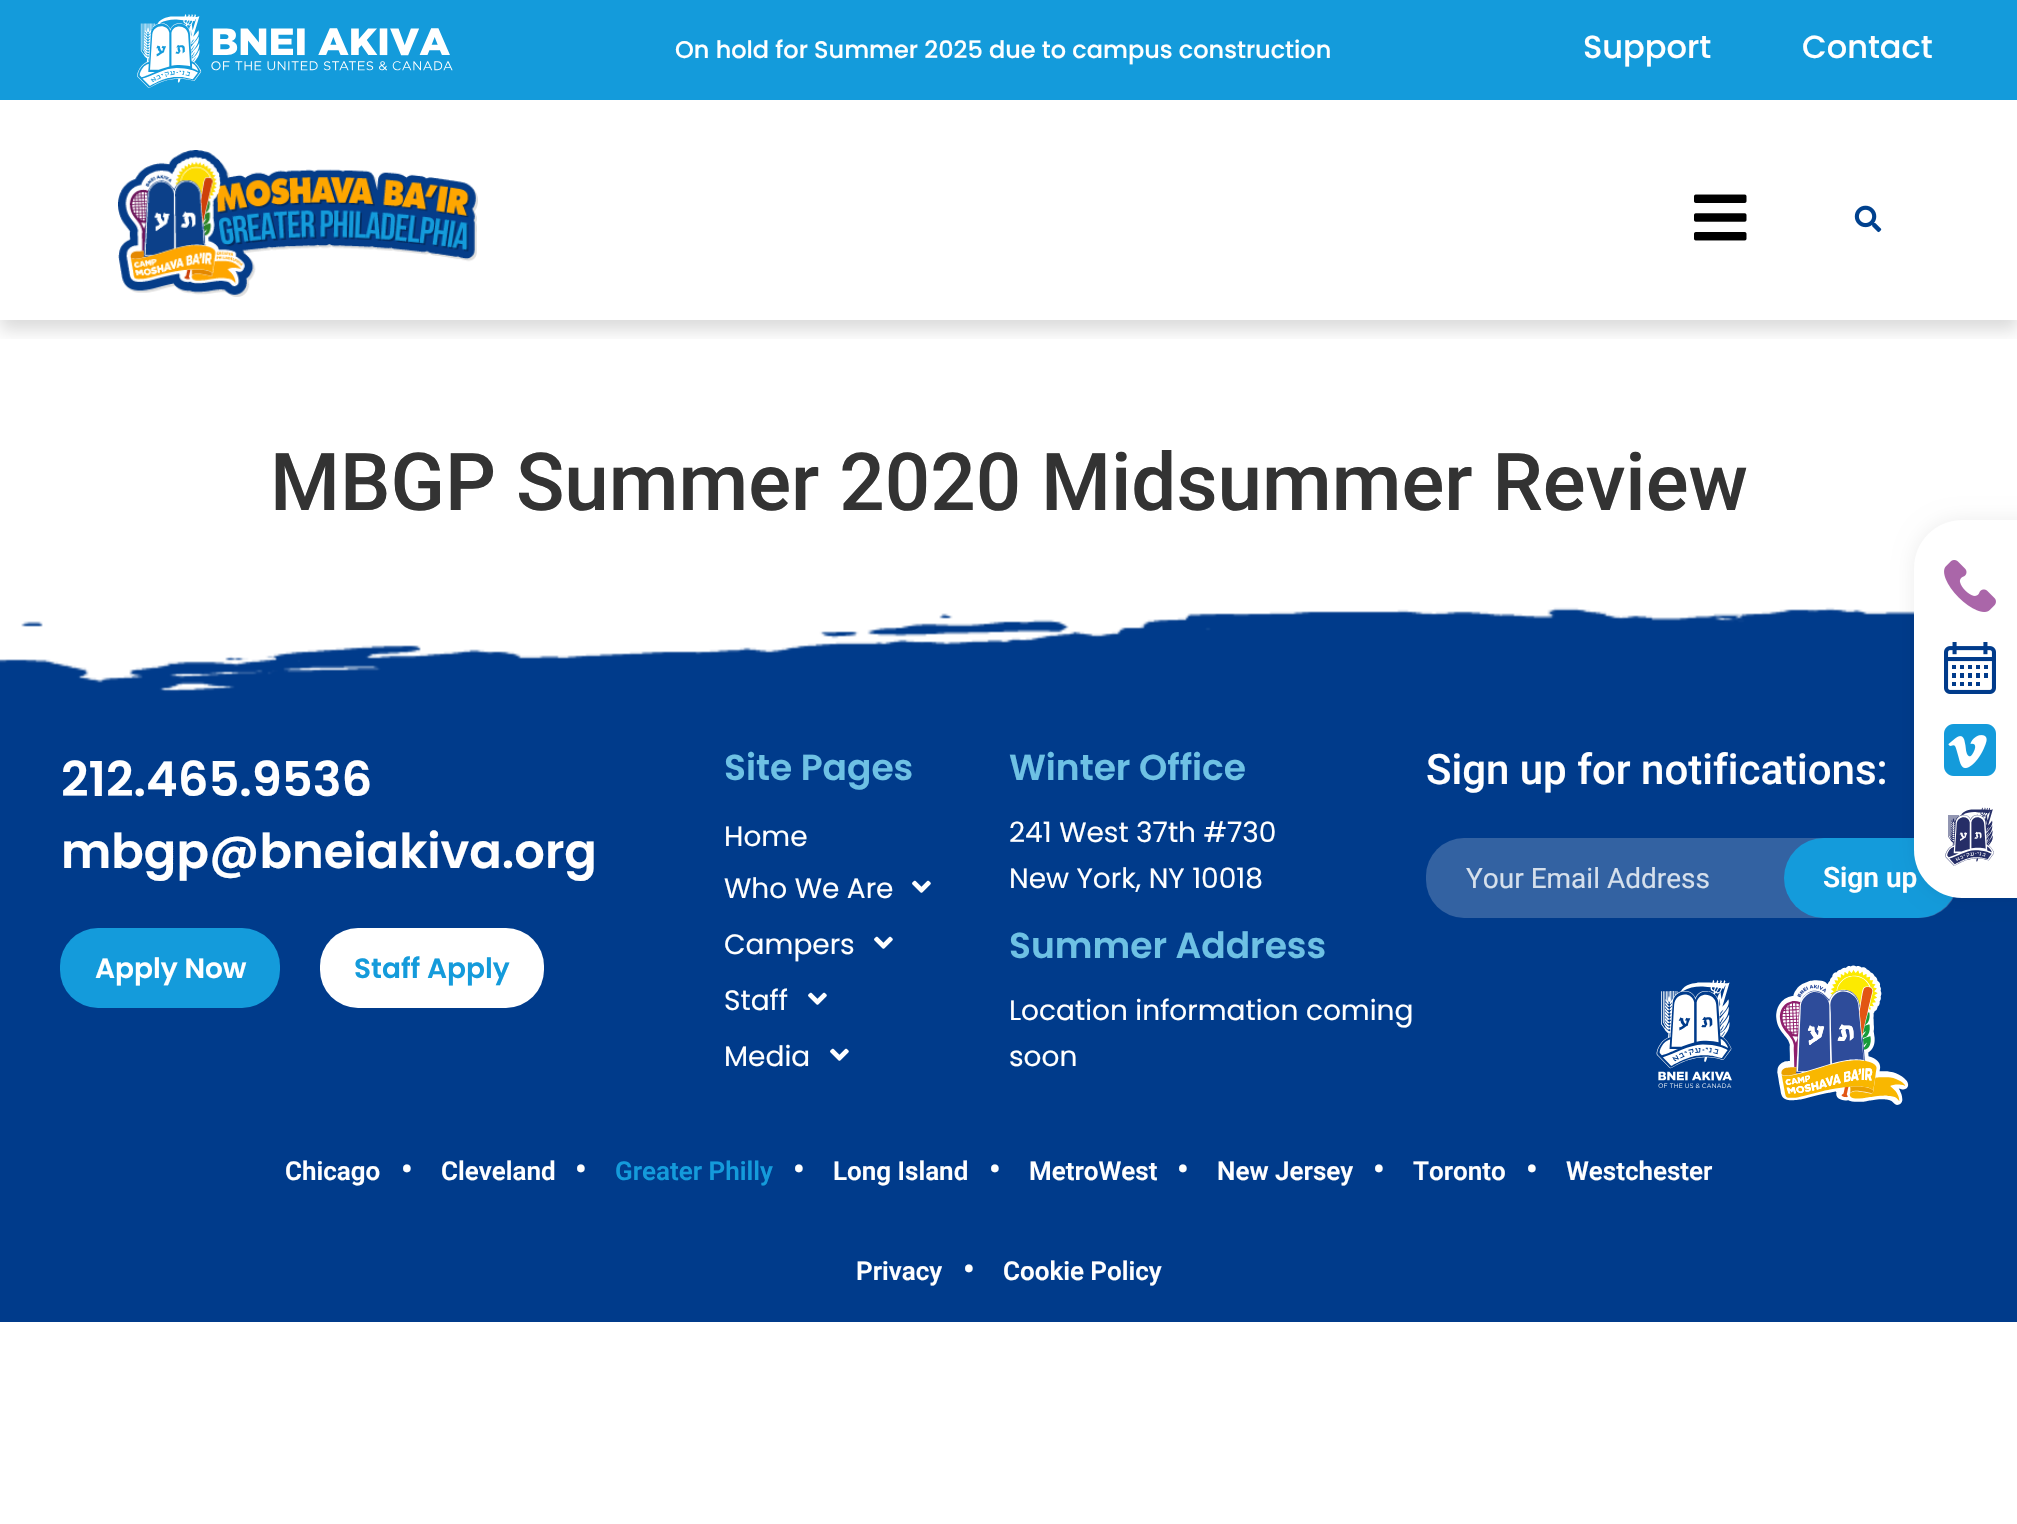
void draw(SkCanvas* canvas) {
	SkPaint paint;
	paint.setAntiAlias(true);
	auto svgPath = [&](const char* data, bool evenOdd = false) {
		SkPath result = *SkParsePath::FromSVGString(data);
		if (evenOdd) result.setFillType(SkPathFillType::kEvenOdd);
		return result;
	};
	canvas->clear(0xffffffff);
	paint.setColor(0xff149bdb);
	canvas->drawRect(SkRect::MakeXYWH(0, 0, 2017, 100), paint);
	canvas->drawImageRect(SkImages::DeferredFromEncodedData(SkData::MakeFromFileName("img1.png")), SkRect::MakeXYWH(137, 14, 316, 74), SkSamplingOptions());
	SkFont f1(fontMgr->matchFamilyStyle("Poppins", SkFontStyle(500, SkFontStyle::kNormal_Width, SkFontStyle::kUpright_Slant)), 24);
	f1.setSubpixel(true);
	paint.setColor(0xffffffff);
	canvas->drawString("On hold for Summer 2025 due to campus construction", 675, 58, f1, paint);
	SkFont f2(fontMgr->matchFamilyStyle("Poppins", SkFontStyle(500, SkFontStyle::kNormal_Width, SkFontStyle::kUpright_Slant)), 32);
	f2.setSubpixel(true);
	canvas->drawString("Support", 1583, 58, f2, paint);
	canvas->drawString("Contact", 1802, 58, f2, paint);
	canvas->save();
	canvas->clipRect(SkRect::MakeXYWH(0, 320, 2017, 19));
	paint.setColor(0x24000000);
	paint.setMaskFilter(SkMaskFilter::MakeBlur(kNormal_SkBlurStyle, 8));
	canvas->drawRect(SkRect::MakeXYWH(0, 110, 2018, 220), paint);
	paint.setMaskFilter(nullptr);
	canvas->restore();
	canvas->drawImageRect(SkImages::DeferredFromEncodedData(SkData::MakeFromFileName("img2.png")), SkRect::MakeXYWH(118, 150, 360, 147), SkSamplingOptions());
	canvas->drawImageRect(SkImages::DeferredFromEncodedData(SkData::MakeFromFileName("img3.png")), SkRect::MakeXYWH(1694, 194, 53, 47), SkSamplingOptions());
	canvas->drawImageRect(SkImages::DeferredFromEncodedData(SkData::MakeFromFileName("img4.png")), SkRect::MakeXYWH(1854, 205, 28, 28), SkSamplingOptions());
	SkFont f3(fontMgr->matchFamilyStyle("Roboto", SkFontStyle(500, SkFontStyle::kNormal_Width, SkFontStyle::kUpright_Slant)), 80);
	f3.setSubpixel(true);
	paint.setColor(0xff333333);
	canvas->drawString("MBGP Summer 2020 Midsummer Review", 270, 510, f3, paint);
	canvas->drawImageRect(SkImages::DeferredFromEncodedData(SkData::MakeFromFileName("img5.png")), SkRect::MakeXYWH(0, 607, 2017, 515), SkSamplingOptions());
	SkFont f4(fontMgr->matchFamilyStyle("Poppins", SkFontStyle(600, SkFontStyle::kNormal_Width, SkFontStyle::kUpright_Slant)), 48);
	f4.setSubpixel(true);
	paint.setColor(0xffffffff);
	canvas->drawString("212.465.9536", 61, 796, f4, paint);
	canvas->drawString("mbgp@bneiakiva.org", 61, 868, f4, paint);
	paint.setColor(0xff149bdb);
	canvas->drawRoundRect(SkRect::MakeXYWH(60, 928, 220, 80), 38, 38, paint);
	SkFont f5(fontMgr->matchFamilyStyle("Poppins", SkFontStyle(600, SkFontStyle::kNormal_Width, SkFontStyle::kUpright_Slant)), 28);
	f5.setSubpixel(true);
	paint.setColor(0xffffffff);
	canvas->drawString("Apply Now", 95, 978, f5, paint);
	canvas->drawRoundRect(SkRect::MakeXYWH(320, 928, 224, 80), 38, 38, paint);
	paint.setColor(0xff149bdb);
	canvas->drawString("Staff Apply", 354, 978, f5, paint);
	SkFont f6(fontMgr->matchFamilyStyle("Poppins", SkFontStyle(600, SkFontStyle::kNormal_Width, SkFontStyle::kUpright_Slant)), 36);
	f6.setSubpixel(true);
	paint.setColor(0xff6ec1e4);
	canvas->drawString("Site Pages", 724, 780, f6, paint);
	SkFont f7(fontMgr->matchFamilyStyle("Poppins", SkFontStyle::Normal()), 28);
	f7.setSubpixel(true);
	paint.setColor(0xffffffff);
	canvas->drawString("Home", 724, 846, f7, paint);
	canvas->drawString("Who We Are", 724, 898, f7, paint);
	canvas->drawImageRect(SkImages::DeferredFromEncodedData(SkData::MakeFromFileName("img6.png")), SkRect::MakeXYWH(912, 880, 19, 13), SkSamplingOptions());
	canvas->drawString("Campers", 724, 954, f7, paint);
	canvas->drawImageRect(SkImages::DeferredFromEncodedData(SkData::MakeFromFileName("img6.png")), SkRect::MakeXYWH(874, 936, 19, 13), SkSamplingOptions());
	canvas->drawString("Staff", 724, 1010, f7, paint);
	canvas->drawImageRect(SkImages::DeferredFromEncodedData(SkData::MakeFromFileName("img6.png")), SkRect::MakeXYWH(808, 992, 19, 13), SkSamplingOptions());
	canvas->drawString("Media", 724, 1066, f7, paint);
	canvas->drawImageRect(SkImages::DeferredFromEncodedData(SkData::MakeFromFileName("img6.png")), SkRect::MakeXYWH(830, 1048, 19, 13), SkSamplingOptions());
	paint.setColor(0xff6ec1e4);
	canvas->drawString("Winter Office", 1009, 780, f6, paint);
	paint.setColor(0xffffffff);
	canvas->drawString("241 West 37th #730", 1009, 842, f7, paint);
	canvas->drawString("New York, NY 10018", 1009, 888, f7, paint);
	paint.setColor(0xff6ec1e4);
	canvas->drawString("Summer Address", 1009, 958, f6, paint);
	paint.setColor(0xffffffff);
	canvas->drawString("Location information coming", 1009, 1020, f7, paint);
	canvas->drawString("soon", 1009, 1066, f7, paint);
	SkFont f8(fontMgr->matchFamilyStyle("Roboto", SkFontStyle(500, SkFontStyle::kNormal_Width, SkFontStyle::kUpright_Slant)), 42);
	f8.setSubpixel(true);
	canvas->drawString("Sign up for notifications:", 1426, 784, f8, paint);
	paint.setColor(0xff3362a2);
	canvas->drawRoundRect(SkRect::MakeXYWH(1426, 838, 532, 80), 38, 38, paint);
	SkFont f9(fontMgr->matchFamilyStyle("Roboto", SkFontStyle::Normal()), 28);
	f9.setSubpixel(true);
	paint.setColor(0xffd6e0ec);
	canvas->drawString("Your Email Address", 1466, 888, f9, paint);
	paint.setColor(0xff149bdb);
	canvas->drawRoundRect(SkRect::MakeXYWH(1784, 838, 174, 80), 40, 40, paint);
	SkFont f10(fontMgr->matchFamilyStyle("Roboto", SkFontStyle(600, SkFontStyle::kNormal_Width, SkFontStyle::kUpright_Slant)), 28);
	f10.setSubpixel(true);
	paint.setColor(0xffffffff);
	canvas->drawString("Sign up", 1823, 887, f10, paint);
	canvas->drawImageRect(SkImages::DeferredFromEncodedData(SkData::MakeFromFileName("img7.png")), SkRect::MakeXYWH(1656, 979, 76, 109), SkSamplingOptions());
	canvas->drawImageRect(SkImages::DeferredFromEncodedData(SkData::MakeFromFileName("img8.png")), SkRect::MakeXYWH(1776, 965, 133, 140), SkSamplingOptions());
	paint.setColor(0x12000000);
	paint.setMaskFilter(SkMaskFilter::MakeBlur(kNormal_SkBlurStyle, 10));
	canvas->drawRoundRect(SkRect::MakeXYWH(1914, 520, 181, 378), 48, 48, paint);
	paint.setMaskFilter(nullptr);
	paint.setColor(0xffffffff);
	canvas->drawPath(svgPath("M1962 520H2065V898H1962C1935.5 898 1914 876.5 1914 850V568C1914 541.5 1935.5 520 1962 520Z"), paint);
	canvas->drawImageRect(SkImages::DeferredFromEncodedData(SkData::MakeFromFileName("img9.png")), SkRect::MakeXYWH(1944, 560, 52, 52), SkSamplingOptions());
	canvas->drawImageRect(SkImages::DeferredFromEncodedData(SkData::MakeFromFileName("img10.png")), SkRect::MakeXYWH(1944, 642, 52, 52), SkSamplingOptions());
	canvas->drawImageRect(SkImages::DeferredFromEncodedData(SkData::MakeFromFileName("img11.png")), SkRect::MakeXYWH(1944, 724, 52, 52), SkSamplingOptions());
	canvas->drawImageRect(SkImages::DeferredFromEncodedData(SkData::MakeFromFileName("img12.png")), SkRect::MakeXYWH(1945, 807, 49, 59), SkSamplingOptions());
	paint.setColor(0xff003b8b);
	canvas->drawRect(SkRect::MakeXYWH(0, 1122, 2017, 200), paint);
	SkFont f11(fontMgr->matchFamilyStyle("Roboto", SkFontStyle(600, SkFontStyle::kNormal_Width, SkFontStyle::kUpright_Slant)), 26);
	f11.setSubpixel(true);
	paint.setColor(0xffffffff);
	canvas->drawString("Chicago", 285, 1180, f11, paint);
	SkFont f12(fontMgr->matchFamilyStyle("Roboto", SkFontStyle::Bold()), 32);
	f12.setSubpixel(true);
	canvas->drawString("•", 401, 1180, f12, paint);
	canvas->drawString("Cleveland", 441, 1180, f11, paint);
	canvas->drawString("•", 575, 1180, f12, paint);
	paint.setColor(0xff149bdb);
	canvas->drawString("Greater Philly", 615, 1180, f11, paint);
	paint.setColor(0xffffffff);
	canvas->drawString("•", 793, 1180, f12, paint);
	canvas->drawString("Long Island", 833, 1180, f11, paint);
	canvas->drawString("•", 989, 1180, f12, paint);
	canvas->drawString("MetroWest", 1029, 1180, f11, paint);
	canvas->drawString("•", 1177, 1180, f12, paint);
	canvas->drawString("New Jersey", 1217, 1180, f11, paint);
	canvas->drawString("•", 1373, 1180, f12, paint);
	canvas->drawString("Toronto", 1413, 1180, f11, paint);
	canvas->drawString("•", 1526, 1180, f12, paint);
	canvas->drawString("Westchester", 1566, 1180, f11, paint);
	canvas->drawString("Privacy", 856, 1280, f11, paint);
	canvas->drawString("•", 963, 1280, f12, paint);
	canvas->drawString("Cookie Policy", 1003, 1280, f11, paint);
}
